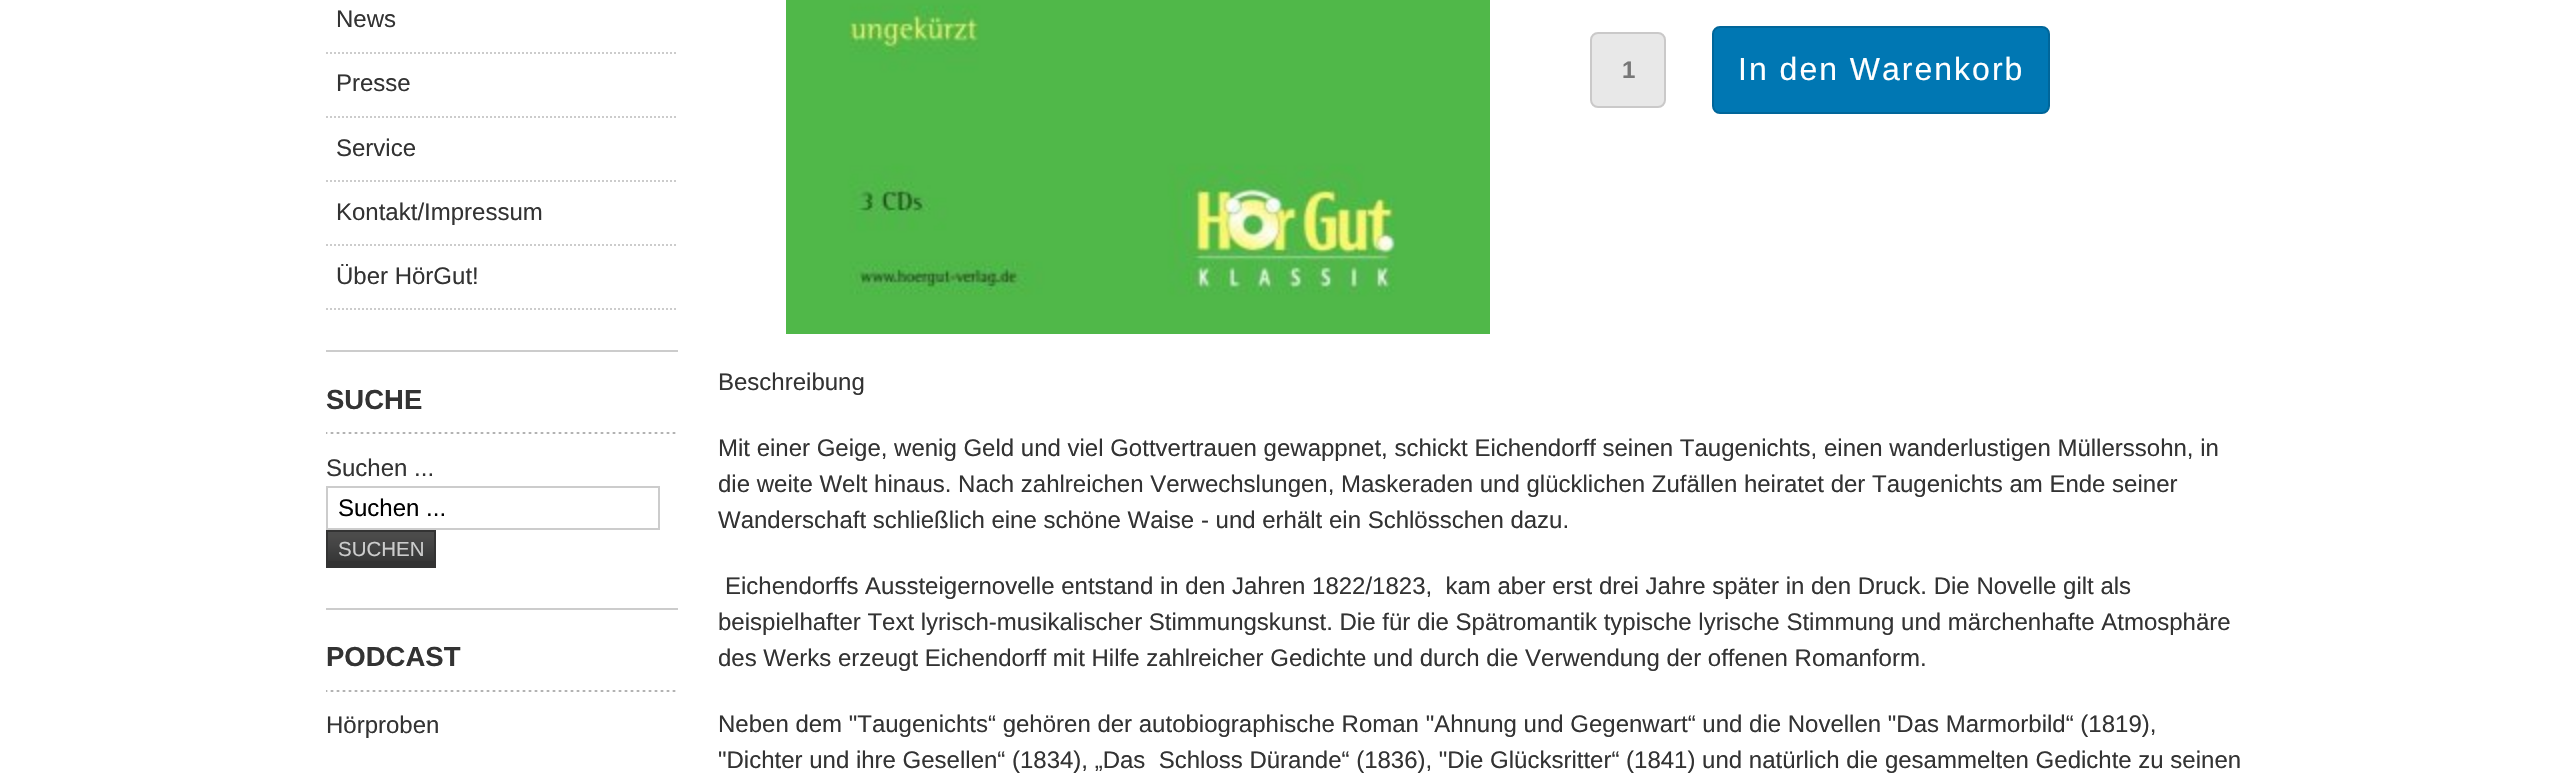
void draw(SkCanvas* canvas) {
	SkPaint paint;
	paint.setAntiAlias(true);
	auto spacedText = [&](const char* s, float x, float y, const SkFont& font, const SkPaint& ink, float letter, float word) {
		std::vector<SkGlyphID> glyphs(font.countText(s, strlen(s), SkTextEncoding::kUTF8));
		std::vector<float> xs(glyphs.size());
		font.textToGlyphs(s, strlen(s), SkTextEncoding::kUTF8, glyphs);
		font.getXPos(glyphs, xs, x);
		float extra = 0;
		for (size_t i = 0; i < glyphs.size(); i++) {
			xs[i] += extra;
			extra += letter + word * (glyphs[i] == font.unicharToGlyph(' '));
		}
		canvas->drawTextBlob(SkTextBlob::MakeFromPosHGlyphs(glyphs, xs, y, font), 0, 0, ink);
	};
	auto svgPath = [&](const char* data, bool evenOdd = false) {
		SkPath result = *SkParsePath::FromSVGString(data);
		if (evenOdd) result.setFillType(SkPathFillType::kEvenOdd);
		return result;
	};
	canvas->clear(0xffffffff);
	paint.setColor(0xffcccccc);
	canvas->drawRect(SkRect::MakeXYWH(326, 350, 352, 2), paint);
	paint.setStroke(true);
	paint.setStrokeWidth(2);
	paint.setPathEffect(SkDashPathEffect::Make({{2, 2}}, 0));
	canvas->drawPath(svgPath("M326 53H678"), paint);
	paint.setPathEffect(nullptr);
	SkFont f1(fontMgr->matchFamilyStyle("Liberation Sans", SkFontStyle::Normal()), 24);
	f1.setSubpixel(true);
	paint.setStroke(false);
	paint.setColor(0xff333333);
	canvas->drawString("News", 336, 27, f1, paint);
	paint.setStroke(true);
	paint.setColor(0xffcccccc);
	paint.setPathEffect(SkDashPathEffect::Make({{2, 2}}, 0));
	canvas->drawPath(svgPath("M326 117H678"), paint);
	paint.setPathEffect(nullptr);
	paint.setStroke(false);
	paint.setColor(0xff333333);
	canvas->drawString("Presse", 336, 91, f1, paint);
	paint.setStroke(true);
	paint.setColor(0xffcccccc);
	paint.setPathEffect(SkDashPathEffect::Make({{2, 2}}, 0));
	canvas->drawPath(svgPath("M326 181H678"), paint);
	paint.setPathEffect(nullptr);
	paint.setStroke(false);
	paint.setColor(0xff333333);
	canvas->drawString("Service", 336, 156, f1, paint);
	paint.setStroke(true);
	paint.setColor(0xffcccccc);
	paint.setPathEffect(SkDashPathEffect::Make({{2, 2}}, 0));
	canvas->drawPath(svgPath("M326 245H678"), paint);
	paint.setPathEffect(nullptr);
	paint.setStroke(false);
	paint.setColor(0xff333333);
	canvas->drawString("Kontakt/Impressum", 336, 220, f1, paint);
	paint.setStroke(true);
	paint.setColor(0xffcccccc);
	paint.setPathEffect(SkDashPathEffect::Make({{2, 2}}, 0));
	canvas->drawPath(svgPath("M326 309H678"), paint);
	paint.setPathEffect(nullptr);
	paint.setStroke(false);
	paint.setColor(0xff333333);
	canvas->drawString("Über HörGut!", 336, 284, f1, paint);
	paint.setColor(0xffcccccc);
	canvas->drawRect(SkRect::MakeXYWH(326, 608, 352, 2), paint);
	canvas->drawImageRect(SkImages::DeferredFromEncodedData(SkData::MakeFromFileName("img1.png")), SkRect::MakeXYWH(326, 432, 350, 2), SkSamplingOptions());
	SkFont f2(fontMgr->matchFamilyStyle("Liberation Sans", SkFontStyle::Bold()), 27.5);
	f2.setSubpixel(true);
	paint.setColor(0xff333333);
	canvas->drawString("SUCHE", 326, 409, f2, paint);
	canvas->drawString("Suchen ...", 326, 476, f1, paint);
	paint.setStroke(true);
	paint.setColor(0xffcccccc);
	canvas->drawRect(SkRect::MakeXYWH(327, 487, 332, 42), paint);
	paint.setStroke(false);
	paint.setColor(0xff000000);
	canvas->drawString("Suchen ...", 338, 516, f1, paint);
	paint.setColor(0xff333333);
	canvas->drawRect(SkRect::MakeXYWH(328, 561, 106, 5), paint);
	canvas->drawImageRect(SkImages::DeferredFromEncodedData(SkData::MakeFromFileName("img2.png")), SkRect::MakeXYWH(328, 532, 106, 29), SkSamplingOptions());
	paint.setStroke(true);
	canvas->drawRect(SkRect::MakeXYWH(327, 531, 108, 36), paint);
	SkFont f3(fontMgr->matchFamilyStyle("Liberation Sans", SkFontStyle::Normal()), 20.5);
	f3.setSubpixel(true);
	paint.setStroke(false);
	paint.setColor(0xffcccccc);
	canvas->drawString("SUCHEN", 338, 556, f3, paint);
	canvas->drawImageRect(SkImages::DeferredFromEncodedData(SkData::MakeFromFileName("img1.png")), SkRect::MakeXYWH(326, 690, 350, 2), SkSamplingOptions());
	paint.setColor(0xff333333);
	canvas->drawString("PODCAST", 326, 666, f2, paint);
	canvas->drawString("Hörproben", 326, 733, f1, paint);
	canvas->drawImageRect(SkImages::DeferredFromEncodedData(SkData::MakeFromFileName("img3.png")), SkRect::MakeXYWH(786, 0, 704, 334), SkSamplingOptions());
	paint.setColor(0xffe8e8e8);
	canvas->drawRoundRect(SkRect::MakeXYWH(1591, 33, 74, 74), 7, 7, paint);
	paint.setStroke(true);
	paint.setColor(0xffcac9c9);
	canvas->drawRoundRect(SkRect::MakeXYWH(1591, 33, 74, 74), 7, 7, paint);
	SkFont f4(fontMgr->matchFamilyStyle("Liberation Sans", SkFontStyle::Bold()), 24);
	f4.setSubpixel(true);
	paint.setStroke(false);
	paint.setColor(0xff777777);
	canvas->drawString("1", 1622, 78, f4, paint);
	paint.setColor(0xff0077b3);
	canvas->drawRoundRect(SkRect::MakeXYWH(1713, 27, 336, 86), 7, 7, paint);
	paint.setStroke(true);
	paint.setColor(0xff00669a);
	canvas->drawRoundRect(SkRect::MakeXYWH(1713, 27, 336, 86), 7, 7, paint);
	SkFont f5(fontMgr->matchFamilyStyle("Liberation Sans", SkFontStyle::Normal()), 32);
	f5.setSubpixel(true);
	paint.setStroke(false);
	paint.setColor(0xffffffff);
	spacedText("In den Warenkorb", 1738, 80, f5, paint, 2, 0);
	paint.setColor(0xff333333);
	canvas->drawString("Beschreibung", 718, 390, f1, paint);
	canvas->drawString("Mit einer Geige, wenig Geld und viel Gottvertrauen gewappnet, schickt Eichendorff seinen Taugenichts, einen wanderlustigen Müllerssohn, in", 718, 456, f1, paint);
	canvas->drawString("die weite Welt hinaus. Nach zahlreichen Verwechslungen, Maskeraden und glücklichen Zufällen heiratet der Taugenichts am Ende seiner", 718, 492, f1, paint);
	canvas->drawString("Wanderschaft schließlich eine schöne Waise - und erhält ein Schlösschen dazu.", 718, 528, f1, paint);
	canvas->drawString("Eichendorffs Aussteigernovelle entstand in den Jahren 1822/1823,  kam aber erst drei Jahre später in den Druck. Die Novelle gilt als", 725, 594, f1, paint);
	canvas->drawString("beispielhafter Text lyrisch-musikalischer Stimmungskunst. Die für die Spätromantik typische lyrische Stimmung und märchenhafte Atmosphäre", 718, 630, f1, paint);
	canvas->drawString("des Werks erzeugt Eichendorff mit Hilfe zahlreicher Gedichte und durch die Verwendung der offenen Romanform.", 718, 666, f1, paint);
	canvas->drawString("Neben dem \"Taugenichts“ gehören der autobiographische Roman \"Ahnung und Gegenwart“ und die Novellen \"Das Marmorbild“ (1819),", 718, 732, f1, paint);
	canvas->drawString("\"Dichter und ihre Gesellen“ (1834), „Das  Schloss Dürande“ (1836), \"Die Glücksritter“ (1841) und natürlich die gesammelten Gedichte zu seinen", 718, 768, f1, paint);
}
